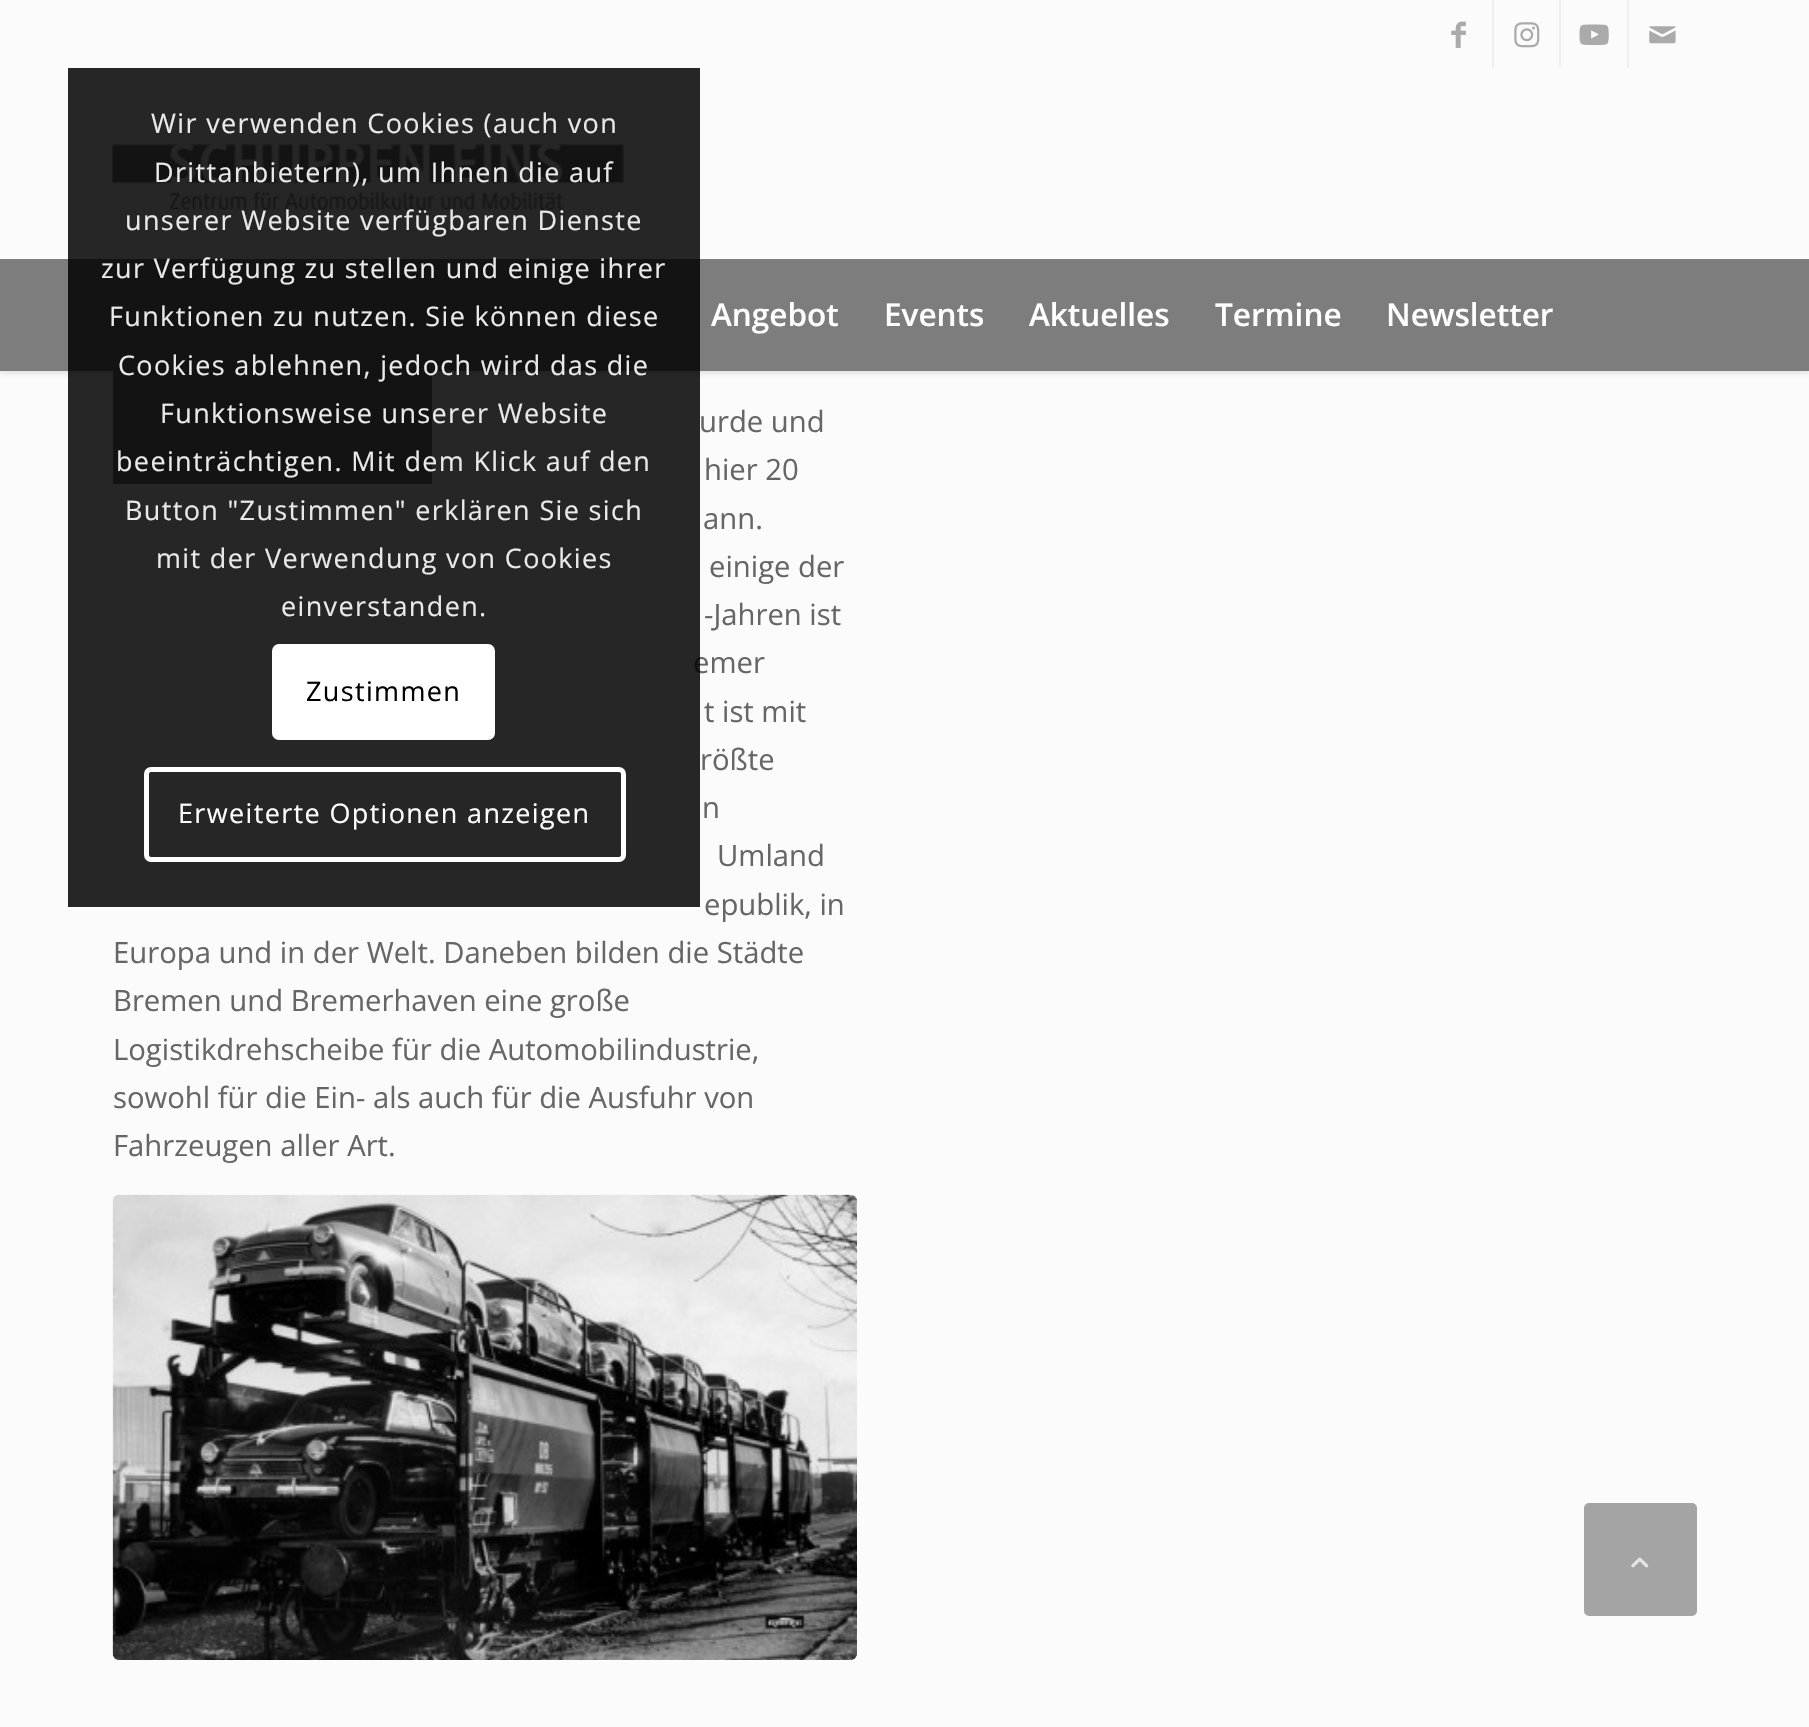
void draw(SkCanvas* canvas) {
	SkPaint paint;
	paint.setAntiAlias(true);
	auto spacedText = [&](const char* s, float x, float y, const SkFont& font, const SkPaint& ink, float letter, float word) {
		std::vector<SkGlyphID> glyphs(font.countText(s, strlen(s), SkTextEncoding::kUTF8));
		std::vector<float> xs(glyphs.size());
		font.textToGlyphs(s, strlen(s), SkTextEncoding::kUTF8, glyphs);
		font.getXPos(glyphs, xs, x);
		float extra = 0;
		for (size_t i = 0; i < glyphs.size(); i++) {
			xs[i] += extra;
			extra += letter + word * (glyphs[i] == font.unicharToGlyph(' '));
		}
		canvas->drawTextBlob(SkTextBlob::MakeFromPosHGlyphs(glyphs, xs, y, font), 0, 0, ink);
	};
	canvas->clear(0xfffbfbfb);
	paint.setColor(0xffe5e5e5);
	paint.setMaskFilter(SkMaskFilter::MakeBlur(kNormal_SkBlurStyle, 2));
	canvas->drawRect(SkRect::MakeXYWH(0, 2, 1809, 372), paint);
	paint.setMaskFilter(nullptr);
	paint.setColor(0xfffbfbfb);
	canvas->drawRect(SkRect::MakeXYWH(0, 0, 1809, 259), paint);
	canvas->drawImageRect(SkImages::DeferredFromEncodedData(SkData::MakeFromFileName("img5.png")), SkRect::MakeXYWH(112, 144, 512, 67), SkSamplingOptions());
	paint.setColor(0xff7d7d7d);
	canvas->drawRect(SkRect::MakeXYWH(0, 259, 1809, 112), paint);
	canvas->drawRect(SkRect::MakeXYWH(113, 371, 319, 113), paint);
	SkFont f1(fontMgr->matchFamilyStyle("Open Sans", SkFontStyle::Normal()), 29.25);
	f1.setSubpixel(true);
	paint.setColor(0xff666666);
	canvas->drawString("emer", 693, 673, f1, paint);
	paint.setColor(0xd9000000);
	canvas->drawRect(SkRect::MakeXYWH(68, 68, 632, 839), paint);
	SkFont f2(fontMgr->matchFamilyStyle("Open Sans", SkFontStyle::Normal()), 27);
	f2.setSubpixel(true);
	paint.setColor(0xffe9e9e9);
	spacedText("Wir verwenden Cookies (auch von", 151, 133, f2, paint, 1.35, 0);
	spacedText("Drittanbietern), um Ihnen die auf", 154, 182, f2, paint, 1.35, 0);
	spacedText("unserer Website verfügbaren Dienste", 125, 230, f2, paint, 1.35, 0);
	spacedText("zur Verfügung zu stellen und einige ihrer", 101, 278, f2, paint, 1.35, 0);
	spacedText("Funktionen zu nutzen. Sie können diese", 109, 326, f2, paint, 1.35, 0);
	spacedText("Cookies ablehnen, jedoch wird das die", 118, 375, f2, paint, 1.35, 0);
	spacedText("Funktionsweise unserer Website", 160, 423, f2, paint, 1.35, 0);
	spacedText("beeinträchtigen. Mit dem Klick auf den", 116, 471, f2, paint, 1.35, 0);
	spacedText("Button \"Zustimmen\" erklären Sie sich", 125, 520, f2, paint, 1.35, 0);
	spacedText("mit der Verwendung von Cookies", 156, 568, f2, paint, 1.35, 0);
	spacedText("einverstanden.", 281, 616, f2, paint, 1.35, 0);
	paint.setColor(0xffffffff);
	canvas->drawRoundRect(SkRect::MakeXYWH(272, 644, 223, 96), 7, 7, paint);
	paint.setColor(0xff000000);
	spacedText("Zustimmen", 306, 701, f2, paint, 1.35, 0);
	paint.setStroke(true);
	paint.setStrokeWidth(5);
	paint.setColor(0xffffffff);
	canvas->drawRoundRect(SkRect::MakeXYWH(146.5, 769.5, 477, 90), 4.5, 4.5, paint);
	paint.setStroke(false);
	spacedText("Erweiterte Optionen anzeigen", 178, 823, f2, paint, 1.35, 0);
	paint.setColor(0xffefefef);
	canvas->drawRect(SkRect::MakeXYWH(1492, 0, 2, 68), paint);
	canvas->drawImageRect(SkImages::DeferredFromEncodedData(SkData::MakeFromFileName("img1.png")), SkRect::MakeXYWH(1451, 21, 15, 27), SkSamplingOptions());
	canvas->drawRect(SkRect::MakeXYWH(1559, 0, 2, 68), paint);
	canvas->drawImageRect(SkImages::DeferredFromEncodedData(SkData::MakeFromFileName("img2.png")), SkRect::MakeXYWH(1514, 22, 26, 26), SkSamplingOptions());
	canvas->drawRect(SkRect::MakeXYWH(1627, 0, 2, 68), paint);
	canvas->drawImageRect(SkImages::DeferredFromEncodedData(SkData::MakeFromFileName("img3.png")), SkRect::MakeXYWH(1579, 24, 30, 22), SkSamplingOptions());
	canvas->drawImageRect(SkImages::DeferredFromEncodedData(SkData::MakeFromFileName("img4.png")), SkRect::MakeXYWH(1649, 26, 27, 18), SkSamplingOptions());
	SkFont f3(fontMgr->matchFamilyStyle("Open Sans", SkFontStyle(600, SkFontStyle::kNormal_Width, SkFontStyle::kUpright_Slant)), 31.5);
	f3.setSubpixel(true);
	paint.setColor(0xffffffff);
	canvas->drawString("Angebot", 711, 326, f3, paint);
	canvas->drawString("Events", 884, 326, f3, paint);
	canvas->drawString("Aktuelles", 1029, 326, f3, paint);
	canvas->drawString("Termine", 1215, 326, f3, paint);
	canvas->drawString("Newsletter", 1386, 326, f3, paint);
	paint.setColor(0xff666666);
	canvas->drawString("urde und", 699, 432, f1, paint);
	canvas->drawString("hier 20", 704, 480, f1, paint);
	canvas->drawString("ann.", 703, 529, f1, paint);
	canvas->drawString("einige der", 709, 577, f1, paint);
	canvas->drawString("-Jahren ist", 704, 625, f1, paint);
	canvas->drawString("t ist mit", 704, 722, f1, paint);
	canvas->drawString("rößte", 700, 770, f1, paint);
	canvas->drawString("n", 702, 818, f1, paint);
	canvas->drawString("Umland", 717, 866, f1, paint);
	canvas->drawString("epublik, in", 704, 915, f1, paint);
	canvas->drawString("Europa und in der Welt. Daneben bilden die Städte", 113, 963, f1, paint);
	canvas->drawString("Bremen und Bremerhaven eine große", 113, 1011, f1, paint);
	canvas->drawString("Logistikdrehscheibe für die Automobilindustrie,", 113, 1060, f1, paint);
	canvas->drawString("sowohl für die Ein- als auch für die Ausfuhr von", 113, 1108, f1, paint);
	canvas->drawString("Fahrzeugen aller Art.", 113, 1156, f1, paint);
	canvas->drawImageRect(SkImages::DeferredFromEncodedData(SkData::MakeFromFileName("img6.png")), SkRect::MakeXYWH(112, 1194, 745, 466), SkSamplingOptions());
	paint.setColor(0xffa4a4a4);
	canvas->drawRoundRect(SkRect::MakeXYWH(1585, 1504, 111, 111), 4, 4, paint);
	paint.setStroke(true);
	paint.setStrokeWidth(2);
	canvas->drawRoundRect(SkRect::MakeXYWH(1585, 1504, 111, 111), 4, 4, paint);
	canvas->drawImageRect(SkImages::DeferredFromEncodedData(SkData::MakeFromFileName("img7.png")), SkRect::MakeXYWH(1631, 1557, 18, 11), SkSamplingOptions());
}
